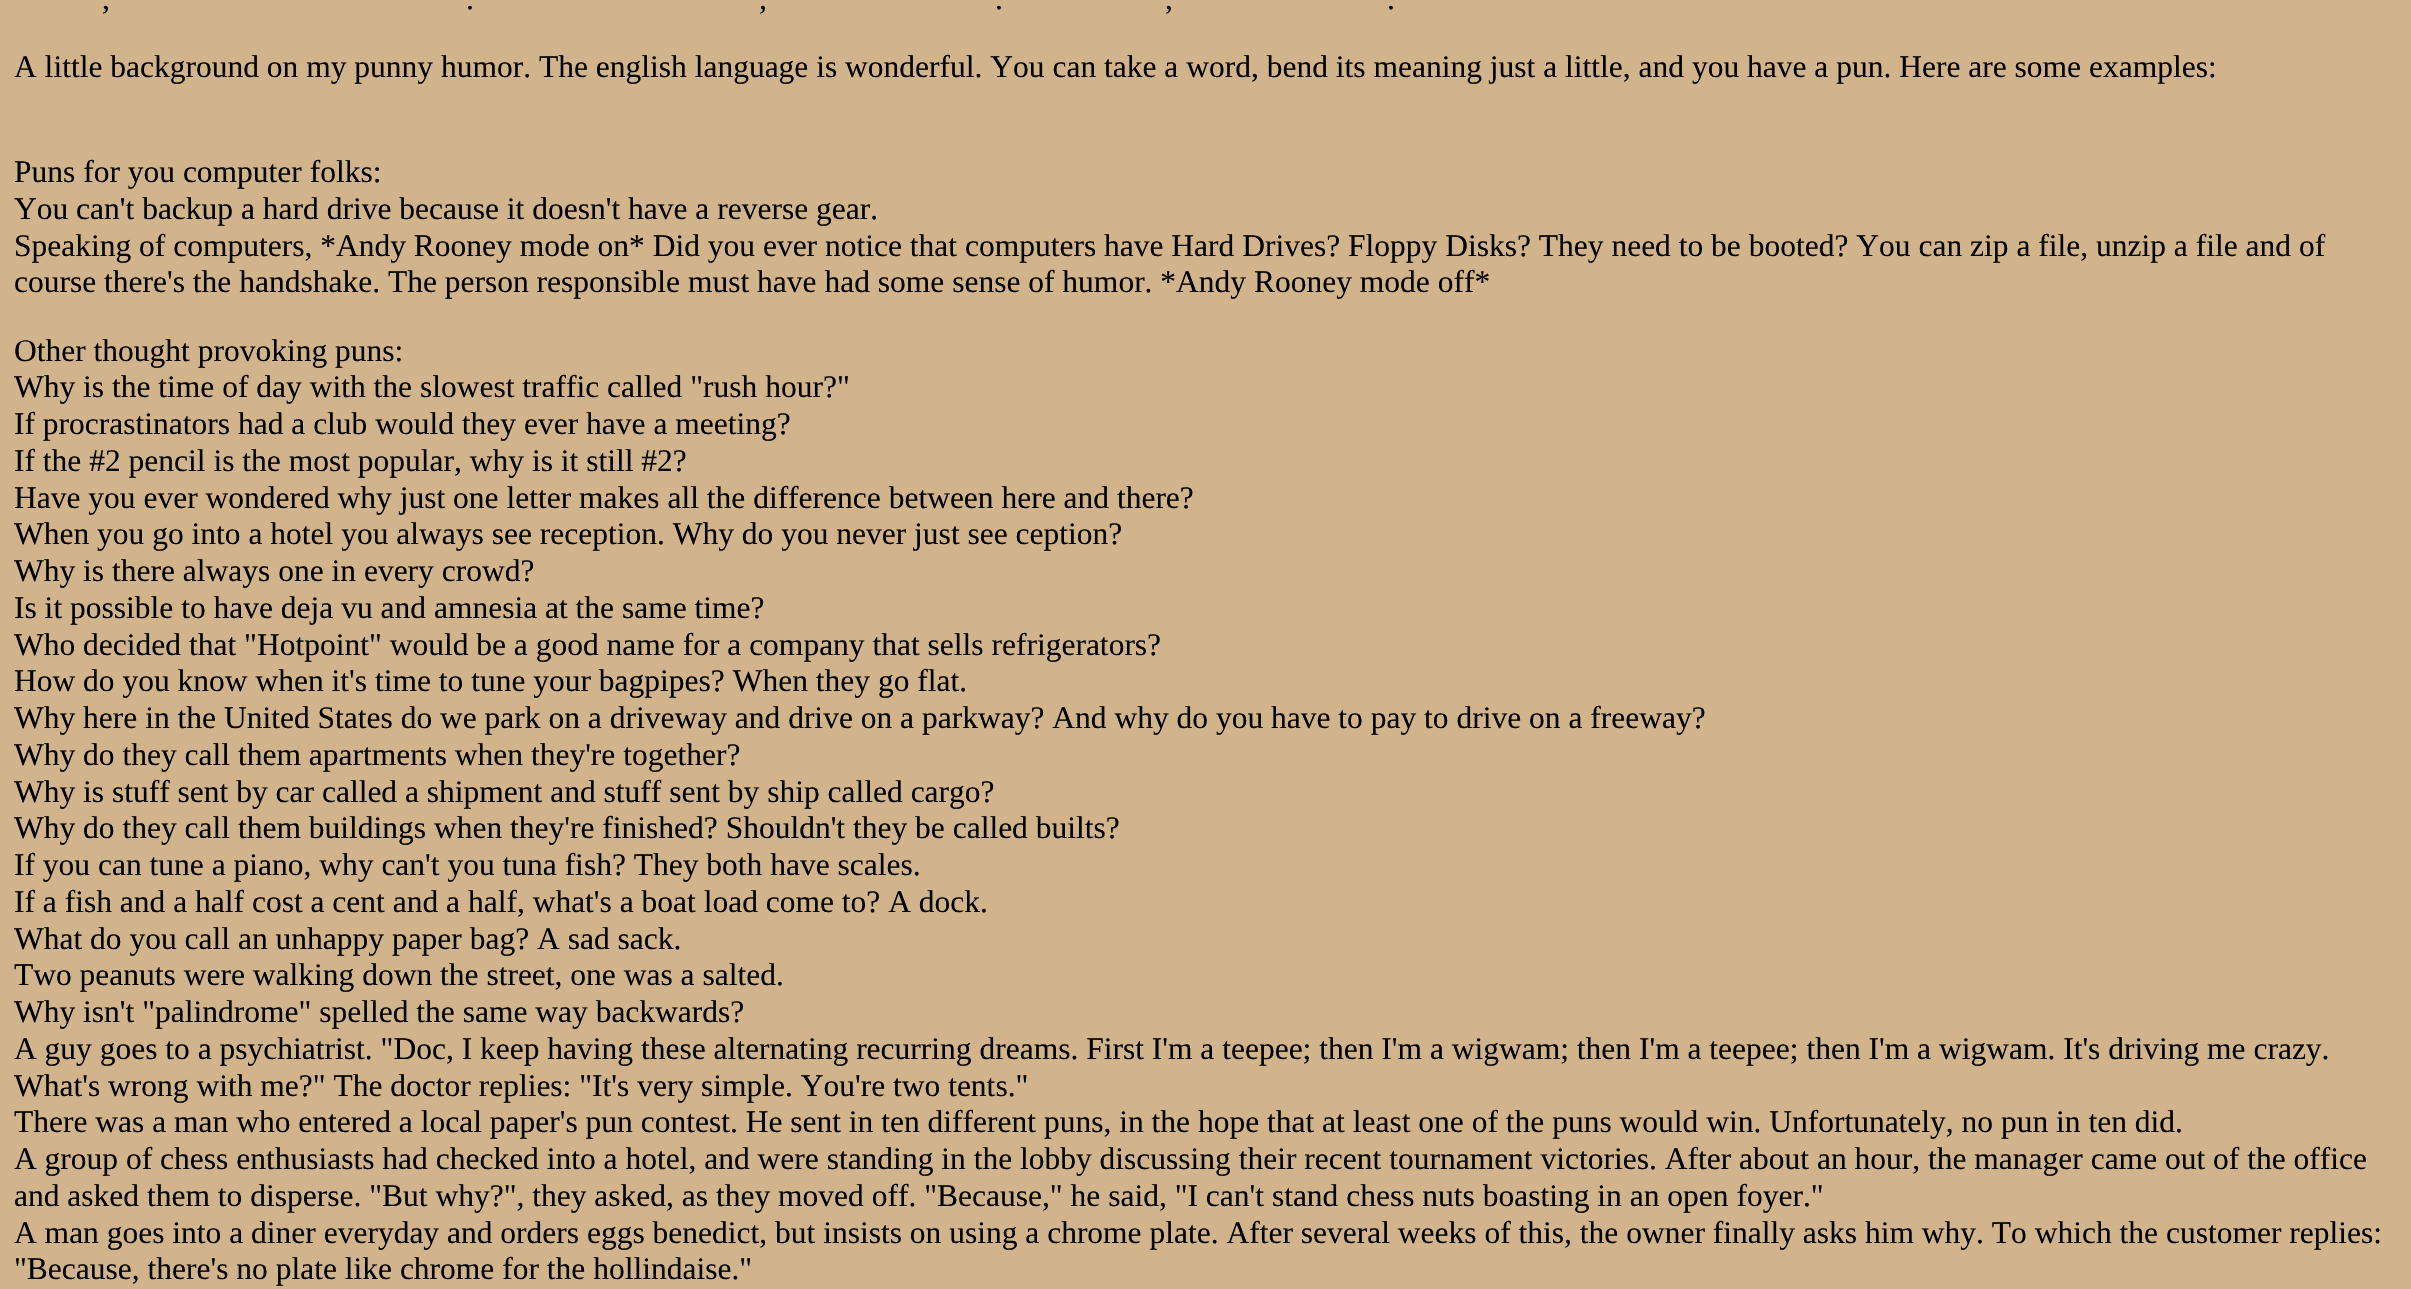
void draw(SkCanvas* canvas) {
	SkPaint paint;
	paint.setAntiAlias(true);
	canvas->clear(0xffd2b48c);
	SkFont f1(fontMgr->matchFamilyStyle("Liberation Serif", SkFontStyle::Normal()), 31.5);
	f1.setSubpixel(true);
	paint.setColor(0xff000000);
	canvas->drawString(",", 102, 9, f1, paint);
	canvas->drawString(".", 466, 9, f1, paint);
	canvas->drawString(",", 759, 9, f1, paint);
	canvas->drawString(".", 995, 9, f1, paint);
	canvas->drawString(",", 1165, 9, f1, paint);
	canvas->drawString(".", 1387, 9, f1, paint);
	canvas->drawString("A little background on my punny humor. The english language is wonderful. You can take a word, bend its meaning just a little, and you have a pun. Here are some examples:", 14, 77, f1, paint);
	canvas->drawString("Puns for you computer folks:", 14, 182, f1, paint);
	canvas->drawString("You can't backup a hard drive because it doesn't have a reverse gear.", 14, 219, f1, paint);
	canvas->drawString("Speaking of computers, *Andy Rooney mode on* Did you ever notice that computers have Hard Drives? Floppy Disks? They need to be booted? You can zip a file, unzip a file and of", 14, 256, f1, paint);
	canvas->drawString("course there's the handshake. The person responsible must have had some sense of humor. *Andy Rooney mode off*", 14, 292, f1, paint);
	canvas->drawString("Other thought provoking puns:", 14, 361, f1, paint);
	canvas->drawString("Why is the time of day with the slowest traffic called \"rush hour?\"", 14, 397, f1, paint);
	canvas->drawString("If procrastinators had a club would they ever have a meeting?", 14, 434, f1, paint);
	canvas->drawString("If the #2 pencil is the most popular, why is it still #2?", 14, 471, f1, paint);
	canvas->drawString("Have you ever wondered why just one letter makes all the difference between here and there?", 14, 508, f1, paint);
	canvas->drawString("When you go into a hotel you always see reception. Why do you never just see ception?", 14, 544, f1, paint);
	canvas->drawString("Why is there always one in every crowd?", 14, 581, f1, paint);
	canvas->drawString("Is it possible to have deja vu and amnesia at the same time?", 14, 618, f1, paint);
	canvas->drawString("Who decided that \"Hotpoint\" would be a good name for a company that sells refrigerators?", 14, 655, f1, paint);
	canvas->drawString("How do you know when it's time to tune your bagpipes? When they go flat.", 14, 691, f1, paint);
	canvas->drawString("Why here in the United States do we park on a driveway and drive on a parkway? And why do you have to pay to drive on a freeway?", 14, 728, f1, paint);
	canvas->drawString("Why do they call them apartments when they're together?", 14, 765, f1, paint);
	canvas->drawString("Why is stuff sent by car called a shipment and stuff sent by ship called cargo?", 14, 802, f1, paint);
	canvas->drawString("Why do they call them buildings when they're finished? Shouldn't they be called builts?", 14, 838, f1, paint);
	canvas->drawString("If you can tune a piano, why can't you tuna fish? They both have scales.", 14, 875, f1, paint);
	canvas->drawString("If a fish and a half cost a cent and a half, what's a boat load come to? A dock.", 14, 912, f1, paint);
	canvas->drawString("What do you call an unhappy paper bag? A sad sack.", 14, 949, f1, paint);
	canvas->drawString("Two peanuts were walking down the street, one was a salted.", 14, 985, f1, paint);
	canvas->drawString("Why isn't \"palindrome\" spelled the same way backwards?", 14, 1022, f1, paint);
	canvas->drawString("A guy goes to a psychiatrist. \"Doc, I keep having these alternating recurring dreams. First I'm a teepee; then I'm a wigwam; then I'm a teepee; then I'm a wigwam. It's driving me crazy.", 14, 1059, f1, paint);
	canvas->drawString("What's wrong with me?\" The doctor replies: \"It's very simple. You're two tents.\"", 14, 1096, f1, paint);
	canvas->drawString("There was a man who entered a local paper's pun contest. He sent in ten different puns, in the hope that at least one of the puns would win. Unfortunately, no pun in ten did.", 14, 1132, f1, paint);
	canvas->drawString("A group of chess enthusiasts had checked into a hotel, and were standing in the lobby discussing their recent tournament victories. After about an hour, the manager came out of the office", 14, 1169, f1, paint);
	canvas->drawString("and asked them to disperse. \"But why?\", they asked, as they moved off. \"Because,\" he said, \"I can't stand chess nuts boasting in an open foyer.\"", 14, 1206, f1, paint);
	canvas->drawString("A man goes into a diner everyday and orders eggs benedict, but insists on using a chrome plate. After several weeks of this, the owner finally asks him why. To which the customer replies:", 14, 1243, f1, paint);
	canvas->drawString("\"Because, there's no plate like chrome for the hollindaise.\"", 14, 1279, f1, paint);
}
